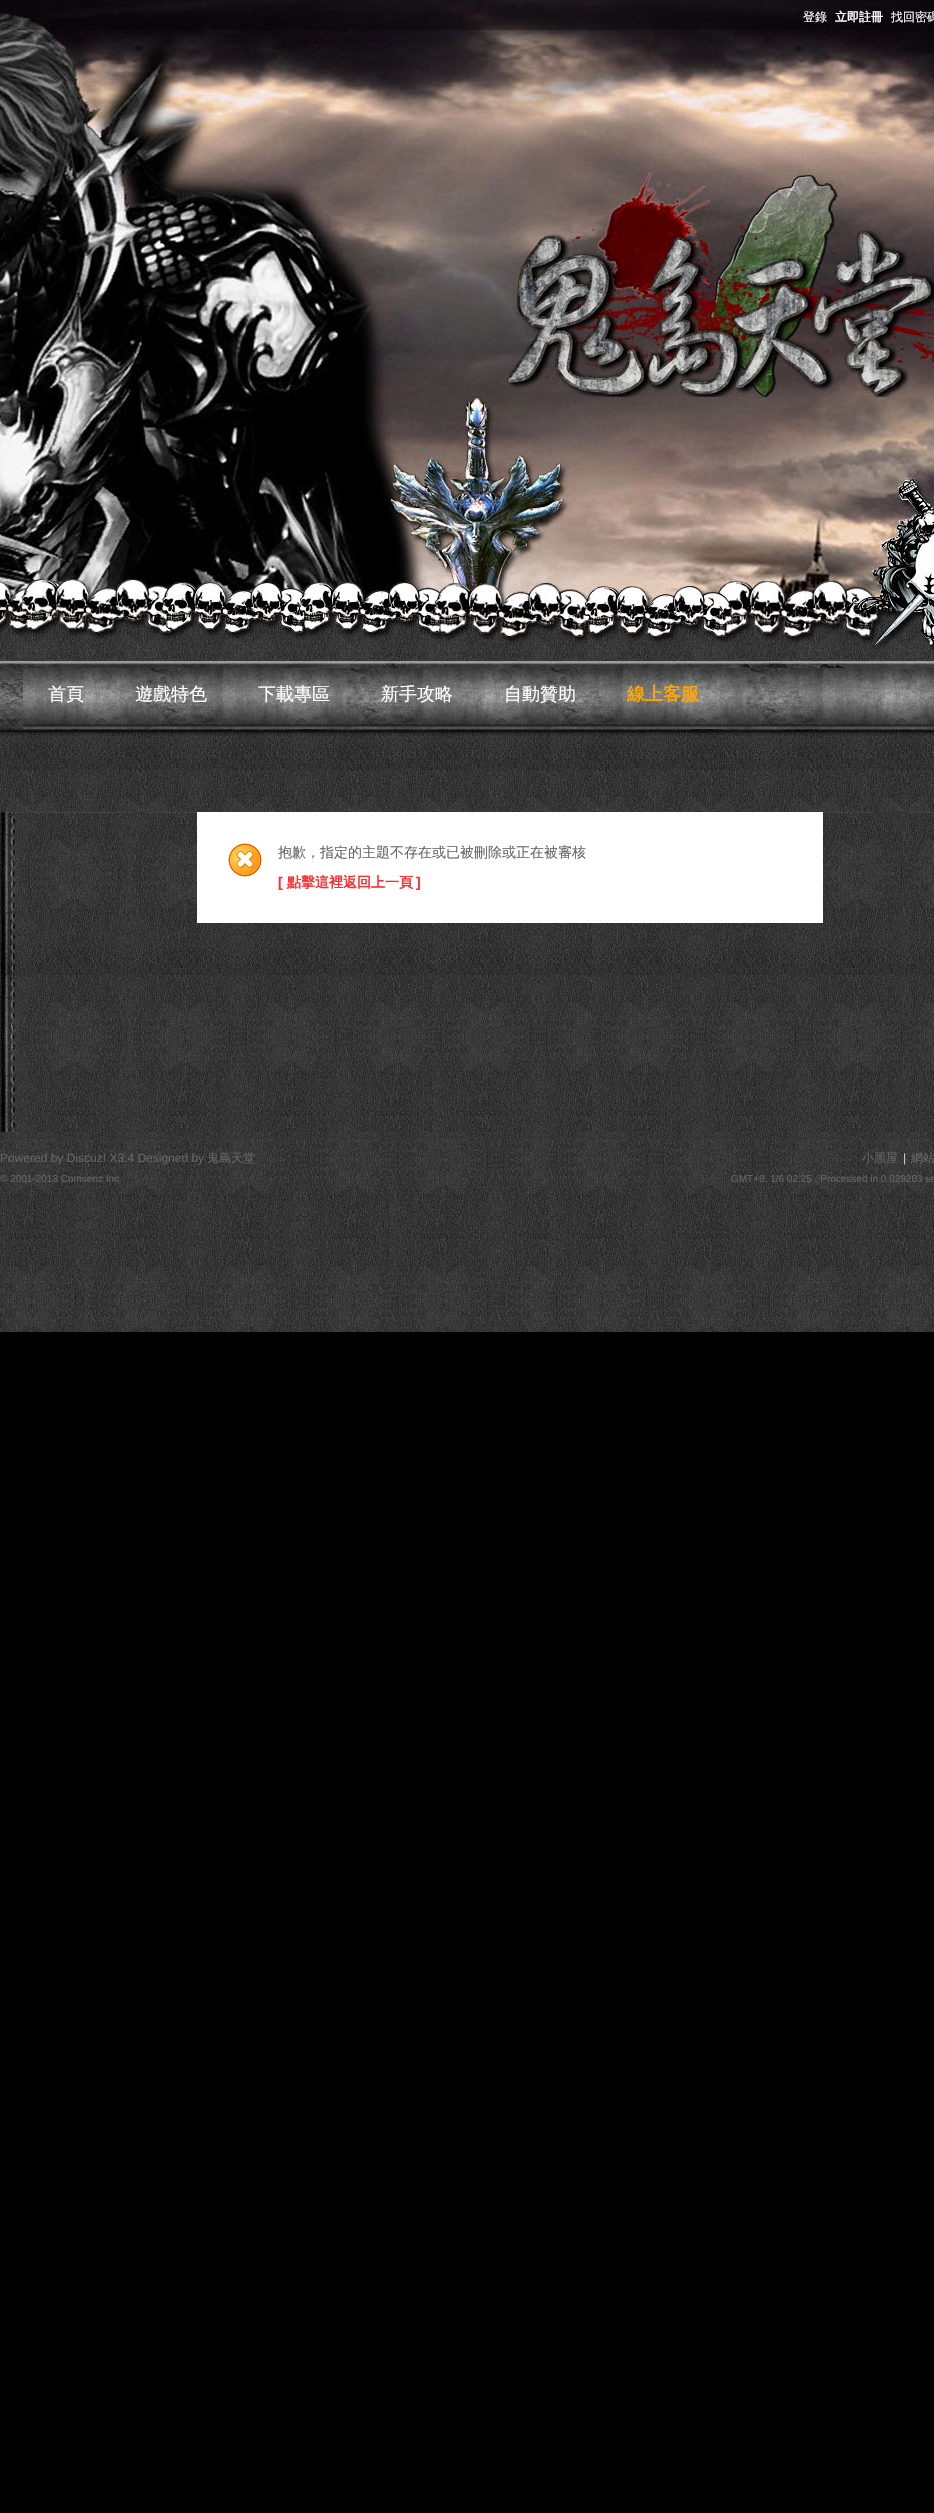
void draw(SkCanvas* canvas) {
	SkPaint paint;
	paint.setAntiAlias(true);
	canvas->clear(0xff000000);
	canvas->drawImageRect(SkImages::DeferredFromEncodedData(SkData::MakeFromFileName("img1.png")), SkRect::MakeXYWH(0, 0, 934, 1332), SkSamplingOptions());
	paint.setColor(0x4d000000);
	canvas->drawRect(SkRect::MakeXYWH(0, 0, 934, 30), paint);
	SkFont f1(fontMgr->matchFamilyStyle("WenQuanYi Zen Hei", SkFontStyle(500, SkFontStyle::kNormal_Width, SkFontStyle::kUpright_Slant)), 12);
	f1.setSubpixel(true);
	paint.setColor(0xffffffff);
	canvas->drawString("登錄", 803, 21, f1, paint);
	SkFont f2(fontMgr->matchFamilyStyle("WenQuanYi Zen Hei", SkFontStyle::Bold()), 12);
	f2.setSubpixel(true);
	canvas->drawString("立即註冊", 835, 21, f2, paint);
	canvas->drawString("找回密碼", 891, 21, f1, paint);
	canvas->drawImageRect(SkImages::DeferredFromEncodedData(SkData::MakeFromFileName("img2.png")), SkRect::MakeXYWH(23, 668, 911, 61), SkSamplingOptions());
	SkFont f3(fontMgr->matchFamilyStyle("WenQuanYi Zen Hei", SkFontStyle(500, SkFontStyle::kNormal_Width, SkFontStyle::kUpright_Slant)), 18);
	f3.setSubpixel(true);
	canvas->drawString("首頁", 48, 700, f3, paint);
	canvas->drawString("遊戲特色", 135, 700, f3, paint);
	canvas->drawString("下載專區", 258, 700, f3, paint);
	canvas->drawString("新手攻略", 381, 700, f3, paint);
	canvas->drawString("自動贊助", 504, 700, f3, paint);
	SkFont f4(fontMgr->matchFamilyStyle("WenQuanYi Zen Hei", SkFontStyle::Bold()), 18);
	f4.setSubpixel(true);
	paint.setColor(0xffffa500);
	canvas->drawString("線上客服", 627, 700, f4, paint);
	canvas->drawImageRect(SkImages::DeferredFromEncodedData(SkData::MakeFromFileName("img3.png")), SkRect::MakeXYWH(0, 812, 934, 320), SkSamplingOptions());
	paint.setColor(0xffffffff);
	canvas->drawRect(SkRect::MakeXYWH(197, 812, 626, 111), paint);
	canvas->drawImageRect(SkImages::DeferredFromEncodedData(SkData::MakeFromFileName("img4.png")), SkRect::MakeXYWH(228, 843, 34, 34), SkSamplingOptions());
	SkFont f5(fontMgr->matchFamilyStyle("WenQuanYi Zen Hei", SkFontStyle(500, SkFontStyle::kNormal_Width, SkFontStyle::kUpright_Slant)), 14);
	f5.setSubpixel(true);
	paint.setColor(0xff666666);
	canvas->drawString("抱歉，指定的主題不存在或已被刪除或正在被審核", 278, 857, f5, paint);
	SkFont f6(fontMgr->matchFamilyStyle("Liberation Sans", SkFontStyle::Bold()), 14);
	f6.setSubpixel(true);
	paint.setColor(0xfffd3030);
	canvas->drawString("[", 278, 887, f6, paint);
	SkFont f7(fontMgr->matchFamilyStyle("WenQuanYi Zen Hei", SkFontStyle::Bold()), 14);
	f7.setSubpixel(true);
	canvas->drawString("點擊這裡返回上一頁", 287, 887, f7, paint);
	canvas->drawString("]", 416, 887, f6, paint);
	paint.setColor(0xff333333);
	canvas->drawRect(SkRect::MakeXYWH(0, 1137, 934, 1), paint);
	SkFont f8(fontMgr->matchFamilyStyle("Liberation Sans", SkFontStyle::Normal()), 12);
	f8.setSubpixel(true);
	paint.setColor(0xff666666);
	canvas->drawString("Powered by Discuz! X3.4 Designed by", 0, 1162, f8, paint);
	canvas->drawString("鬼島天堂", 207, 1162, f1, paint);
	SkFont f9(fontMgr->matchFamilyStyle("Liberation Sans", SkFontStyle::Normal()), 10);
	f9.setSubpixel(true);
	canvas->drawString("© 2001-2013 Comsenz Inc.", 0, 1182, f9, paint);
	canvas->drawString("小黑屋", 862, 1162, f1, paint);
	paint.setColor(0xffcccccc);
	canvas->drawString("|", 903, 1162, f8, paint);
	paint.setColor(0xff666666);
	canvas->drawString("網站", 911, 1162, f1, paint);
	canvas->drawString("GMT+8, 1/6 02:25 , Processed in 0.029203 se", 731, 1182, f9, paint);
}
